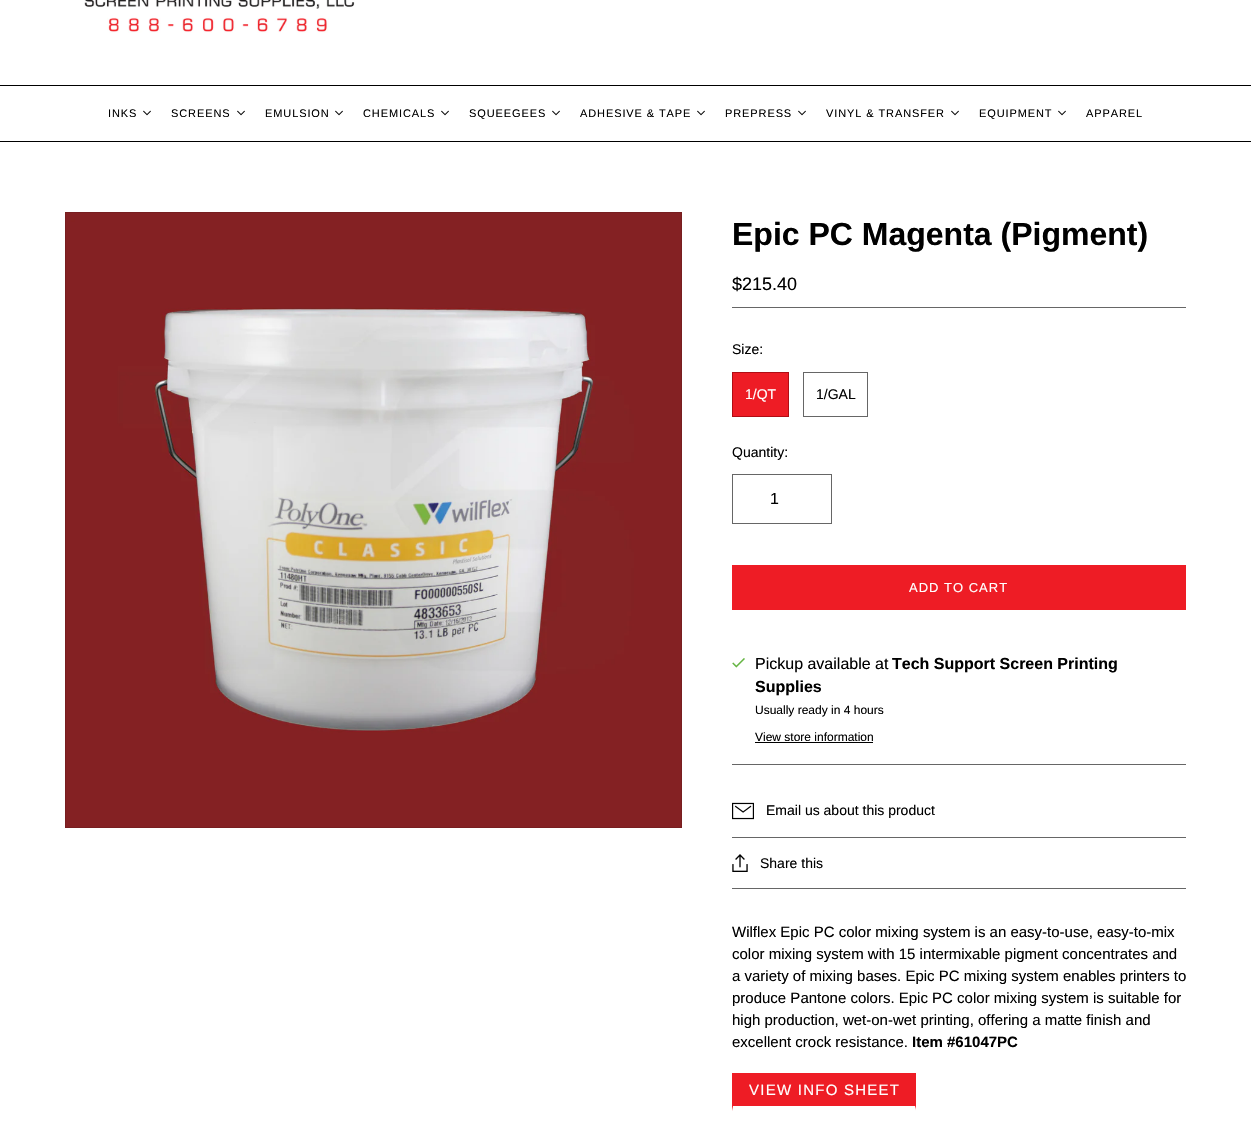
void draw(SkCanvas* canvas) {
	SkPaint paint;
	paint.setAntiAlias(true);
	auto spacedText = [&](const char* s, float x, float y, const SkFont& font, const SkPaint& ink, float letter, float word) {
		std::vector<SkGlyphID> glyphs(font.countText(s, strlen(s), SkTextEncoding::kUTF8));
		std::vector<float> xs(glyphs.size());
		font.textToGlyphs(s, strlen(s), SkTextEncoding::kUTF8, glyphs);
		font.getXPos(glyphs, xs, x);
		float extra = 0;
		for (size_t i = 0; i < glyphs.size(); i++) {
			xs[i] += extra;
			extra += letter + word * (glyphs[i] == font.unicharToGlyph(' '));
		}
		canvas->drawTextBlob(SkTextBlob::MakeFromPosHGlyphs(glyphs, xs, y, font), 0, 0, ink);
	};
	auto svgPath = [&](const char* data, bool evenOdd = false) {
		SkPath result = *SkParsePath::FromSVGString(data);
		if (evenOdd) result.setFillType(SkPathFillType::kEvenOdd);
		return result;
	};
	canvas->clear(0xffffffff);
	canvas->drawImageRect(SkImages::DeferredFromEncodedData(SkData::MakeFromFileName("img1.png")), SkRect::MakeXYWH(84, 0, 271, 33), SkSamplingOptions());
	paint.setColor(0xff000000);
	canvas->drawRect(SkRect::MakeXYWH(0, 85, 1251, 1), paint);
	canvas->drawRect(SkRect::MakeXYWH(0, 141, 1251, 1), paint);
	SkFont f1(fontMgr->matchFamilyStyle("Liberation Sans", SkFontStyle::Normal()), 11);
	f1.setSubpixel(true);
	spacedText("INKS", 108, 117, f1, paint, 0.9, 0);
	canvas->drawImageRect(SkImages::DeferredFromEncodedData(SkData::MakeFromFileName("img2.png")), SkRect::MakeXYWH(143, 110, 8, 6), SkSamplingOptions());
	spacedText("SCREENS", 171, 117, f1, paint, 0.9, 0);
	canvas->drawImageRect(SkImages::DeferredFromEncodedData(SkData::MakeFromFileName("img2.png")), SkRect::MakeXYWH(237, 110, 8, 6), SkSamplingOptions());
	spacedText("EMULSION", 265, 117, f1, paint, 0.9, 0);
	canvas->drawImageRect(SkImages::DeferredFromEncodedData(SkData::MakeFromFileName("img2.png")), SkRect::MakeXYWH(335, 110, 8, 6), SkSamplingOptions());
	spacedText("CHEMICALS", 363, 117, f1, paint, 0.9, 0);
	canvas->drawImageRect(SkImages::DeferredFromEncodedData(SkData::MakeFromFileName("img2.png")), SkRect::MakeXYWH(441, 110, 8, 6), SkSamplingOptions());
	spacedText("SQUEEGEES", 469, 117, f1, paint, 0.9, 0);
	canvas->drawImageRect(SkImages::DeferredFromEncodedData(SkData::MakeFromFileName("img2.png")), SkRect::MakeXYWH(552, 110, 8, 6), SkSamplingOptions());
	spacedText("ADHESIVE & TAPE", 580, 117, f1, paint, 0.9, 0);
	canvas->drawImageRect(SkImages::DeferredFromEncodedData(SkData::MakeFromFileName("img2.png")), SkRect::MakeXYWH(697, 110, 8, 6), SkSamplingOptions());
	spacedText("PREPRESS", 725, 117, f1, paint, 0.9, 0);
	canvas->drawImageRect(SkImages::DeferredFromEncodedData(SkData::MakeFromFileName("img2.png")), SkRect::MakeXYWH(798, 110, 8, 6), SkSamplingOptions());
	spacedText("VINYL & TRANSFER", 826, 117, f1, paint, 0.9, 0);
	canvas->drawImageRect(SkImages::DeferredFromEncodedData(SkData::MakeFromFileName("img2.png")), SkRect::MakeXYWH(951, 110, 8, 6), SkSamplingOptions());
	spacedText("EQUIPMENT", 979, 117, f1, paint, 0.9, 0);
	canvas->drawImageRect(SkImages::DeferredFromEncodedData(SkData::MakeFromFileName("img2.png")), SkRect::MakeXYWH(1058, 110, 8, 6), SkSamplingOptions());
	spacedText("APPAREL", 1086, 117, f1, paint, 0.9, 0);
	canvas->drawImageRect(SkImages::DeferredFromEncodedData(SkData::MakeFromFileName("img3.png")), SkRect::MakeXYWH(65, 212, 617, 616), SkSamplingOptions());
	paint.setStroke(true);
	paint.setStrokeWidth(1);
	paint.setColor(0x1a000000);
	canvas->drawRect(SkRect::MakeXYWH(65.5, 212.5, 616, 615), paint);
	SkFont f2(fontMgr->matchFamilyStyle("Liberation Sans", SkFontStyle::Bold()), 32);
	f2.setSubpixel(true);
	paint.setStroke(false);
	paint.setColor(0xff000000);
	canvas->drawString("Epic PC Magenta (Pigment)", 732, 245, f2, paint);
	paint.setColor(0xff666666);
	canvas->drawRect(SkRect::MakeXYWH(732, 307, 454, 1), paint);
	SkFont f3(fontMgr->matchFamilyStyle("Liberation Sans", SkFontStyle::Normal()), 18);
	f3.setSubpixel(true);
	paint.setColor(0xff000000);
	canvas->drawString("$215.40", 732, 290, f3, paint);
	paint.setColor(0xff666666);
	canvas->drawRect(SkRect::MakeXYWH(732, 764, 454, 1), paint);
	SkFont f4(fontMgr->matchFamilyStyle("Liberation Sans", SkFontStyle::Normal()), 14);
	f4.setSubpixel(true);
	paint.setColor(0xff000000);
	canvas->drawString("Size:", 732, 354, f4, paint);
	paint.setColor(0xffee1c25);
	canvas->drawRect(SkRect::MakeXYWH(732.5, 372.5, 56, 44), paint);
	paint.setStroke(true);
	paint.setColor(0xffb00d14);
	canvas->drawRect(SkRect::MakeXYWH(732.5, 372.5, 56, 44), paint);
	paint.setStroke(false);
	paint.setColor(0xffffffff);
	canvas->drawString("1/QT", 745, 399, f4, paint);
	paint.setStroke(true);
	paint.setColor(0xff666666);
	canvas->drawRect(SkRect::MakeXYWH(803.5, 372.5, 64, 44), paint);
	paint.setStroke(false);
	paint.setColor(0xff000000);
	canvas->drawString("1/GAL", 816, 399, f4, paint);
	canvas->drawString("Quantity:", 732, 457, f4, paint);
	paint.setStroke(true);
	paint.setColor(0xff666666);
	canvas->drawRect(SkRect::MakeXYWH(732.5, 474.5, 99, 49), paint);
	SkFont f5(fontMgr->matchFamilyStyle("Liberation Sans", SkFontStyle::Normal()), 16);
	f5.setSubpixel(true);
	paint.setStroke(false);
	paint.setColor(0xff000000);
	canvas->drawString("1", 770, 504, f5, paint);
	paint.setColor(0xffee1c25);
	canvas->drawRect(SkRect::MakeXYWH(732, 565, 454, 45), paint);
	SkFont f6(fontMgr->matchFamilyStyle("Liberation Sans", SkFontStyle::Normal()), 13);
	f6.setSubpixel(true);
	paint.setColor(0xffffffff);
	spacedText("ADD TO CART", 909, 592, f6, paint, 1, 0);
	canvas->drawImageRect(SkImages::DeferredFromEncodedData(SkData::MakeFromFileName("img4.png")), SkRect::MakeXYWH(732, 658, 13, 10), SkSamplingOptions());
	paint.setColor(0xff000000);
	canvas->drawString("Pickup available at", 755, 669, f5, paint);
	SkFont f7(fontMgr->matchFamilyStyle("Liberation Sans", SkFontStyle::Bold()), 16);
	f7.setSubpixel(true);
	canvas->drawString("Tech Support Screen Printing", 892, 669, f7, paint);
	canvas->drawString("Supplies", 755, 692, f7, paint);
	SkFont f8(fontMgr->matchFamilyStyle("Liberation Sans", SkFontStyle::Normal()), 12);
	f8.setSubpixel(true);
	canvas->drawString("Usually ready in 4 hours", 755, 714, f8, paint);
	canvas->drawString("View store information", 755, 741, f8, paint);
	canvas->drawRect(SkRect::MakeXYWH(755, 742, 118, 1), paint);
	paint.setColor(0xff666666);
	canvas->drawRect(SkRect::MakeXYWH(732, 837, 454, 1), paint);
	canvas->drawImageRect(SkImages::DeferredFromEncodedData(SkData::MakeFromFileName("img5.png")), SkRect::MakeXYWH(732, 802, 22, 18), SkSamplingOptions());
	paint.setColor(0xff000000);
	canvas->drawString("Email us about this product", 766, 815, f4, paint);
	paint.setColor(0xff666666);
	canvas->drawRect(SkRect::MakeXYWH(732, 888, 454, 1), paint);
	canvas->drawImageRect(SkImages::DeferredFromEncodedData(SkData::MakeFromFileName("img6.png")), SkRect::MakeXYWH(732, 854, 16, 18), SkSamplingOptions());
	paint.setColor(0xff000000);
	canvas->drawString("Share this", 760, 868, f4, paint);
	SkFont f9(fontMgr->matchFamilyStyle("Liberation Sans", SkFontStyle::Normal()), 15);
	f9.setSubpixel(true);
	canvas->drawString("Wilflex Epic PC color mixing system is an easy-to-use, easy-to-mix", 732, 937, f9, paint);
	canvas->drawString("color mixing system with 15 intermixable pigment concentrates and", 732, 959, f9, paint);
	canvas->drawString("a variety of mixing bases. Epic PC mixing system enables printers to", 732, 981, f9, paint);
	canvas->drawString("produce Pantone colors. Epic PC color mixing system is suitable for", 732, 1003, f9, paint);
	canvas->drawString("high production, wet-on-wet printing, offering a matte finish and", 732, 1025, f9, paint);
	canvas->drawString("excellent crock resistance.", 732, 1047, f9, paint);
	SkFont f10(fontMgr->matchFamilyStyle("Liberation Sans", SkFontStyle::Bold()), 15);
	f10.setSubpixel(true);
	canvas->drawString("Item #61047PC", 912, 1047, f10, paint);
	paint.setColor(0xffee1c25);
	canvas->drawRect(SkRect::MakeXYWH(733, 1074, 182, 32), paint);
	canvas->drawRect(SkRect::MakeXYWH(732, 1073, 184, 1), paint);
	canvas->drawPath(svgPath("M916 1073V1111L915 1106V1074Z"), paint);
	paint.setColor(0xffffffff);
	canvas->drawPath(svgPath("M916 1111H732L733 1106H915Z"), paint);
	paint.setColor(0xffee1c25);
	canvas->drawPath(svgPath("M732 1111V1073L733 1074V1106Z"), paint);
	paint.setColor(0xffffffff);
	spacedText("VIEW INFO SHEET", 749, 1095, f9, paint, 1.25, 0);
}
